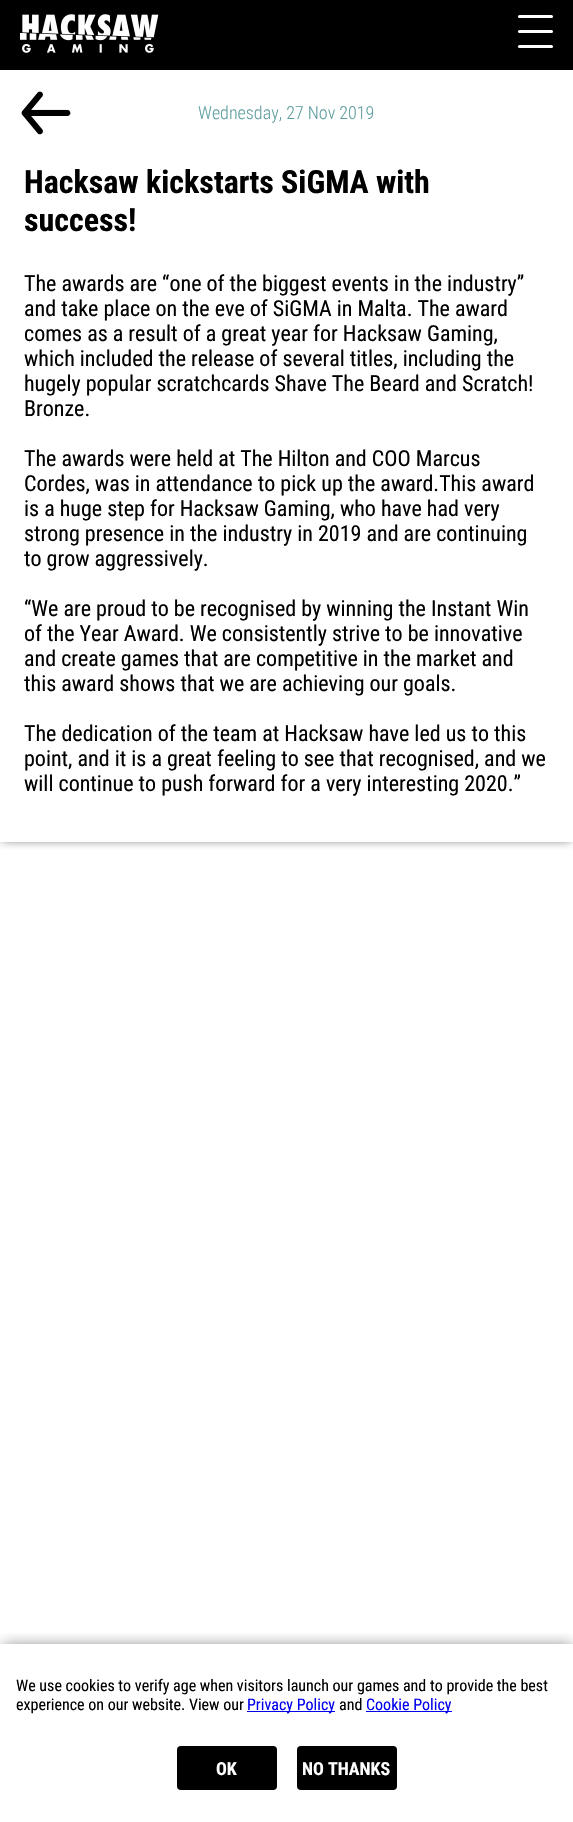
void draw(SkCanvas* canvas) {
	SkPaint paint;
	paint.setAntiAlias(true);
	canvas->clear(0xffffffff);
	canvas->save();
	canvas->clipRect(SkRect::MakeXYWH(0, 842, 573, 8));
	paint.setColor(0xbf595959);
	paint.setMaskFilter(SkMaskFilter::MakeBlur(kNormal_SkBlurStyle, 4.5));
	canvas->drawRect(SkRect::MakeXYWH(2, 73, 569, 768), paint);
	paint.setMaskFilter(nullptr);
	canvas->restore();
	paint.setColor(0xff000000);
	canvas->drawRect(SkRect::MakeXYWH(0, 0, 573, 70), paint);
	canvas->drawImageRect(SkImages::DeferredFromEncodedData(SkData::MakeFromFileName("img1.png")), SkRect::MakeXYWH(20, 14, 139, 39), SkSamplingOptions());
	paint.setColor(0xffffffff);
	canvas->drawRoundRect(SkRect::MakeXYWH(518, 15, 35, 3), 1.5, 1.5, paint);
	canvas->drawRoundRect(SkRect::MakeXYWH(518, 30, 35, 3), 1.5, 1.5, paint);
	canvas->drawRoundRect(SkRect::MakeXYWH(518, 45, 35, 3), 1.5, 1.5, paint);
	canvas->drawImageRect(SkImages::DeferredFromEncodedData(SkData::MakeFromFileName("img2.png")), SkRect::MakeXYWH(21, 91, 50, 44), SkSamplingOptions());
	SkFont f1(fontMgr->matchFamilyStyle("Roboto Condensed", SkFontStyle(300, SkFontStyle::kNormal_Width, SkFontStyle::kUpright_Slant)), 18);
	f1.setSubpixel(true);
	paint.setColor(0xff5f9ea0);
	canvas->drawString("Wednesday, 27 Nov 2019", 198, 119, f1, paint);
	SkFont f2(fontMgr->matchFamilyStyle("Roboto Condensed", SkFontStyle::Bold()), 32);
	f2.setSubpixel(true);
	paint.setColor(0xff000000);
	canvas->drawString("Hacksaw kickstarts SiGMA with", 24, 193, f2, paint);
	canvas->drawString("success!", 24, 231, f2, paint);
	SkFont f3(fontMgr->matchFamilyStyle("Roboto Condensed", SkFontStyle::Normal()), 22);
	f3.setSubpixel(true);
	canvas->drawString("The awards are “one of the biggest events in the industry”", 24, 291, f3, paint);
	canvas->drawString("and take place on the eve of SiGMA in Malta. The award", 24, 316, f3, paint);
	canvas->drawString("comes as a result of a great year for Hacksaw Gaming,", 24, 341, f3, paint);
	canvas->drawString("which included the release of several titles, including the", 24, 366, f3, paint);
	canvas->drawString("hugely popular scratchcards Shave The Beard and Scratch!", 24, 391, f3, paint);
	canvas->drawString("Bronze.", 24, 416, f3, paint);
	canvas->drawString("The awards were held at The Hilton and COO Marcus", 24, 466, f3, paint);
	canvas->drawString("Cordes, was in attendance to pick up the award.This award", 24, 491, f3, paint);
	canvas->drawString("is a huge step for Hacksaw Gaming, who have had very", 24, 516, f3, paint);
	canvas->drawString("strong presence in the industry in 2019 and are continuing", 24, 541, f3, paint);
	canvas->drawString("to grow aggressively.", 24, 566, f3, paint);
	canvas->drawString("“We are proud to be recognised by winning the Instant Win", 24, 616, f3, paint);
	canvas->drawString("of the Year Award. We consistently strive to be innovative", 24, 641, f3, paint);
	canvas->drawString("and create games that are competitive in the market and", 24, 666, f3, paint);
	canvas->drawString("this award shows that we are achieving our goals.", 24, 691, f3, paint);
	canvas->drawString("The dedication of the team at Hacksaw have led us to this", 24, 741, f3, paint);
	canvas->drawString("point, and it is a great feeling to see that recognised, and we", 24, 766, f3, paint);
	canvas->drawString("will continue to push forward for a very interesting 2020.”", 24, 791, f3, paint);
	canvas->save();
	canvas->clipRect(SkRect::MakeXYWH(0, 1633, 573, 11));
	paint.setColor(0x66000000);
	paint.setMaskFilter(SkMaskFilter::MakeBlur(kNormal_SkBlurStyle, 6.5));
	canvas->drawRect(SkRect::MakeXYWH(3, 1644, 569, 174), paint);
	paint.setMaskFilter(nullptr);
	canvas->restore();
	SkFont f4(fontMgr->matchFamilyStyle("Roboto Condensed", SkFontStyle::Normal()), 16);
	f4.setSubpixel(true);
	paint.setColor(0xff000000);
	canvas->drawString("We use cookies to verify age when visitors launch our games and to provide the best", 16, 1691, f4, paint);
	canvas->drawString("experience on our website. View our", 16, 1710, f4, paint);
	paint.setColor(0xff0000ee);
	canvas->drawRect(SkRect::MakeXYWH(247, 1711, 88, 1), paint);
	canvas->drawString("Privacy Policy", 247, 1710, f4, paint);
	paint.setColor(0xff000000);
	canvas->drawString("and", 339, 1710, f4, paint);
	paint.setColor(0xff0000ee);
	canvas->drawRect(SkRect::MakeXYWH(366, 1711, 86, 1), paint);
	canvas->drawString("Cookie Policy", 366, 1710, f4, paint);
	paint.setColor(0xff000000);
	canvas->drawRoundRect(SkRect::MakeXYWH(177, 1746, 100, 44), 4, 4, paint);
	SkFont f5(fontMgr->matchFamilyStyle("Roboto Condensed", SkFontStyle::Bold()), 18);
	f5.setSubpixel(true);
	paint.setColor(0xffffffff);
	canvas->drawString("OK", 216, 1775, f5, paint);
	paint.setColor(0xff000000);
	canvas->drawRoundRect(SkRect::MakeXYWH(297, 1746, 100, 44), 4, 4, paint);
	paint.setColor(0xffffffff);
	canvas->drawString("NO THANKS", 302, 1775, f5, paint);
}
